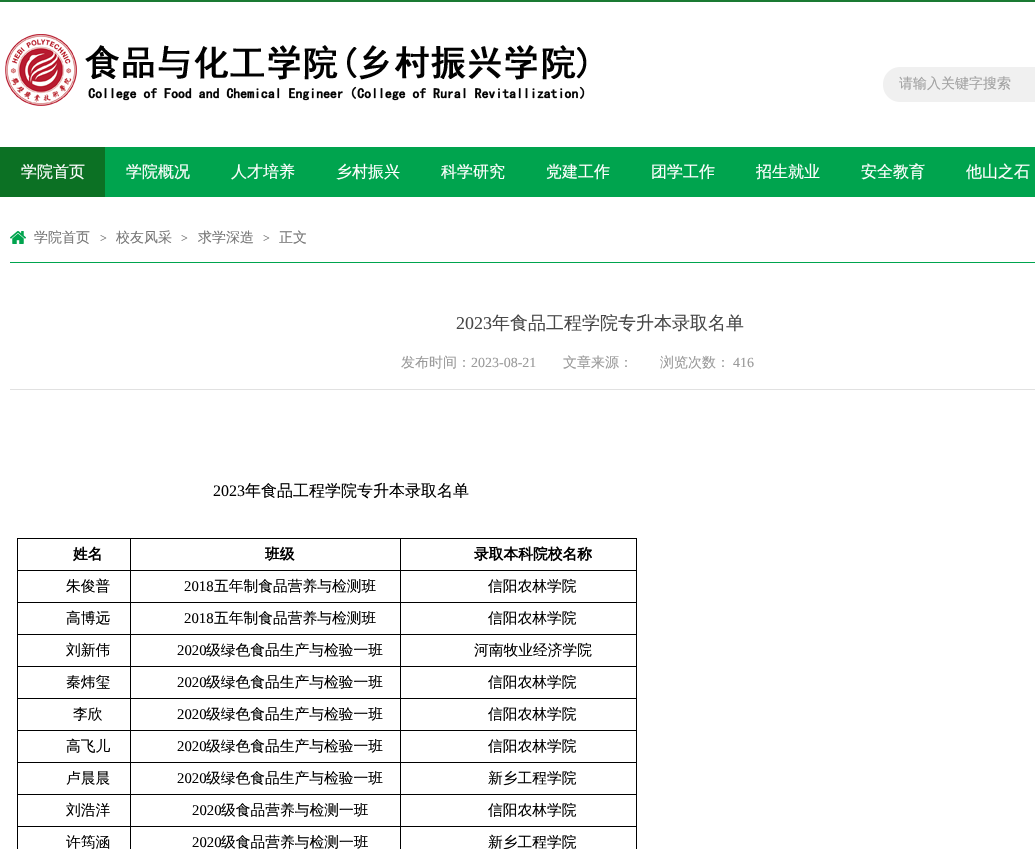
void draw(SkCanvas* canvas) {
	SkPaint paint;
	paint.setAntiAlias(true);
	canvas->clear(0xffffffff);
	paint.setColor(0xff1a7a32);
	canvas->drawRect(SkRect::MakeXYWH(0, 0, 1035, 2), paint);
	canvas->drawImageRect(SkImages::DeferredFromEncodedData(SkData::MakeFromFileName("img1.png")), SkRect::MakeXYWH(5, 34, 582, 72), SkSamplingOptions());
	canvas->drawImageRect(SkImages::DeferredFromEncodedData(SkData::MakeFromFileName("img2.png")), SkRect::MakeXYWH(883, 67, 152, 35), SkSamplingOptions());
	SkFont f1(fontMgr->matchFamilyStyle("WenQuanYi Zen Hei", SkFontStyle(500, SkFontStyle::kNormal_Width, SkFontStyle::kUpright_Slant)), 14);
	f1.setSubpixel(true);
	paint.setColor(0xffa2a2a2);
	canvas->drawString("请输入关键字搜索", 899, 88, f1, paint);
	paint.setColor(0xff00a44e);
	canvas->drawRect(SkRect::MakeXYWH(105, 147, 930, 50), paint);
	paint.setColor(0xff0c7124);
	canvas->drawRect(SkRect::MakeXYWH(0, 147, 105, 50), paint);
	SkFont f2(fontMgr->matchFamilyStyle("WenQuanYi Zen Hei", SkFontStyle(500, SkFontStyle::kNormal_Width, SkFontStyle::kUpright_Slant)), 16);
	f2.setSubpixel(true);
	paint.setColor(0xffffffff);
	canvas->drawString("学院首页", 21, 177, f2, paint);
	canvas->drawString("学院概况", 126, 177, f2, paint);
	canvas->drawString("人才培养", 231, 177, f2, paint);
	canvas->drawString("乡村振兴", 336, 177, f2, paint);
	canvas->drawString("科学研究", 441, 177, f2, paint);
	canvas->drawString("党建工作", 546, 177, f2, paint);
	canvas->drawString("团学工作", 651, 177, f2, paint);
	canvas->drawString("招生就业", 756, 177, f2, paint);
	canvas->drawString("安全教育", 861, 177, f2, paint);
	canvas->drawString("他山之石", 966, 177, f2, paint);
	paint.setColor(0xff00a44e);
	canvas->drawRect(SkRect::MakeXYWH(10, 262, 1025, 1), paint);
	canvas->drawImageRect(SkImages::DeferredFromEncodedData(SkData::MakeFromFileName("img3.png")), SkRect::MakeXYWH(10, 231, 16, 13), SkSamplingOptions());
	paint.setColor(0xff787878);
	canvas->drawString("学院首页", 34, 242, f1, paint);
	SkFont f3(fontMgr->matchFamilyStyle("Liberation Serif", SkFontStyle::Normal()), 12);
	f3.setSubpixel(true);
	canvas->drawString(">", 100, 242, f3, paint);
	canvas->drawString("校友风采", 116, 242, f1, paint);
	canvas->drawString(">", 181, 242, f3, paint);
	canvas->drawString("求学深造", 198, 242, f1, paint);
	canvas->drawString(">", 263, 242, f3, paint);
	canvas->drawString("正文", 279, 242, f1, paint);
	SkFont f4(fontMgr->matchFamilyStyle("Liberation Serif", SkFontStyle::Normal()), 18);
	f4.setSubpixel(true);
	paint.setColor(0xff484848);
	canvas->drawString("2023", 456, 329, f4, paint);
	SkFont f5(fontMgr->matchFamilyStyle("WenQuanYi Zen Hei", SkFontStyle(500, SkFontStyle::kNormal_Width, SkFontStyle::kUpright_Slant)), 18);
	f5.setSubpixel(true);
	canvas->drawString("年食品工程学院专升本录取名单", 492, 329, f5, paint);
	paint.setColor(0xffe1e1e1);
	canvas->drawRect(SkRect::MakeXYWH(10, 389, 1025, 1), paint);
	paint.setColor(0xff9a9a9a);
	canvas->drawString("发布时间：", 401, 367, f1, paint);
	SkFont f6(fontMgr->matchFamilyStyle("Liberation Serif", SkFontStyle::Normal()), 14);
	f6.setSubpixel(true);
	canvas->drawString("2023-08-21", 471, 367, f6, paint);
	canvas->drawString("文章来源：", 563, 367, f1, paint);
	canvas->drawString("浏览次数：", 660, 367, f1, paint);
	canvas->drawString("416", 733, 367, f6, paint);
	SkFont f7(fontMgr->matchFamilyStyle("Liberation Serif", SkFontStyle::Normal()), 16);
	f7.setSubpixel(true);
	paint.setColor(0xff000000);
	canvas->drawString("2023", 213, 496, f7, paint);
	canvas->drawString("年食品工程学院专升本录取名单", 245, 496, f2, paint);
	canvas->drawRect(SkRect::MakeXYWH(17, 538, 620, 1), paint);
	canvas->drawRect(SkRect::MakeXYWH(636, 570, 1, 279), paint);
	canvas->drawRect(SkRect::MakeXYWH(636, 538, 1, 33), paint);
	canvas->drawRect(SkRect::MakeXYWH(400, 826, 1, 23), paint);
	canvas->drawRect(SkRect::MakeXYWH(400, 826, 237, 1), paint);
	canvas->drawRect(SkRect::MakeXYWH(400, 794, 1, 33), paint);
	canvas->drawRect(SkRect::MakeXYWH(400, 794, 237, 1), paint);
	canvas->drawRect(SkRect::MakeXYWH(400, 762, 1, 33), paint);
	canvas->drawRect(SkRect::MakeXYWH(400, 762, 237, 1), paint);
	canvas->drawRect(SkRect::MakeXYWH(400, 730, 1, 33), paint);
	canvas->drawRect(SkRect::MakeXYWH(400, 730, 237, 1), paint);
	canvas->drawRect(SkRect::MakeXYWH(400, 698, 1, 33), paint);
	canvas->drawRect(SkRect::MakeXYWH(400, 698, 237, 1), paint);
	canvas->drawRect(SkRect::MakeXYWH(400, 666, 1, 33), paint);
	canvas->drawRect(SkRect::MakeXYWH(400, 666, 237, 1), paint);
	canvas->drawRect(SkRect::MakeXYWH(400, 634, 1, 33), paint);
	canvas->drawRect(SkRect::MakeXYWH(400, 634, 237, 1), paint);
	canvas->drawRect(SkRect::MakeXYWH(400, 602, 1, 33), paint);
	canvas->drawRect(SkRect::MakeXYWH(400, 602, 237, 1), paint);
	canvas->drawRect(SkRect::MakeXYWH(400, 570, 1, 33), paint);
	canvas->drawRect(SkRect::MakeXYWH(400, 570, 237, 1), paint);
	canvas->drawRect(SkRect::MakeXYWH(400, 538, 1, 33), paint);
	canvas->drawRect(SkRect::MakeXYWH(130, 826, 1, 23), paint);
	canvas->drawRect(SkRect::MakeXYWH(130, 826, 271, 1), paint);
	canvas->drawRect(SkRect::MakeXYWH(130, 794, 1, 33), paint);
	canvas->drawRect(SkRect::MakeXYWH(130, 794, 271, 1), paint);
	canvas->drawRect(SkRect::MakeXYWH(130, 762, 1, 33), paint);
	canvas->drawRect(SkRect::MakeXYWH(130, 762, 271, 1), paint);
	canvas->drawRect(SkRect::MakeXYWH(130, 730, 1, 33), paint);
	canvas->drawRect(SkRect::MakeXYWH(130, 730, 271, 1), paint);
	canvas->drawRect(SkRect::MakeXYWH(130, 698, 1, 33), paint);
	canvas->drawRect(SkRect::MakeXYWH(130, 698, 271, 1), paint);
	canvas->drawRect(SkRect::MakeXYWH(130, 666, 1, 33), paint);
	canvas->drawRect(SkRect::MakeXYWH(130, 666, 271, 1), paint);
	canvas->drawRect(SkRect::MakeXYWH(130, 634, 1, 33), paint);
	canvas->drawRect(SkRect::MakeXYWH(130, 634, 271, 1), paint);
	canvas->drawRect(SkRect::MakeXYWH(130, 602, 1, 33), paint);
	canvas->drawRect(SkRect::MakeXYWH(130, 602, 271, 1), paint);
	canvas->drawRect(SkRect::MakeXYWH(130, 570, 1, 33), paint);
	canvas->drawRect(SkRect::MakeXYWH(130, 570, 271, 1), paint);
	canvas->drawRect(SkRect::MakeXYWH(130, 538, 1, 33), paint);
	canvas->drawRect(SkRect::MakeXYWH(17, 826, 1, 23), paint);
	canvas->drawRect(SkRect::MakeXYWH(17, 826, 114, 1), paint);
	canvas->drawRect(SkRect::MakeXYWH(17, 794, 1, 33), paint);
	canvas->drawRect(SkRect::MakeXYWH(17, 794, 114, 1), paint);
	canvas->drawRect(SkRect::MakeXYWH(17, 762, 1, 33), paint);
	canvas->drawRect(SkRect::MakeXYWH(17, 762, 114, 1), paint);
	canvas->drawRect(SkRect::MakeXYWH(17, 730, 1, 33), paint);
	canvas->drawRect(SkRect::MakeXYWH(17, 730, 114, 1), paint);
	canvas->drawRect(SkRect::MakeXYWH(17, 698, 1, 33), paint);
	canvas->drawRect(SkRect::MakeXYWH(17, 698, 114, 1), paint);
	canvas->drawRect(SkRect::MakeXYWH(17, 666, 1, 33), paint);
	canvas->drawRect(SkRect::MakeXYWH(17, 666, 114, 1), paint);
	canvas->drawRect(SkRect::MakeXYWH(17, 634, 1, 33), paint);
	canvas->drawRect(SkRect::MakeXYWH(17, 634, 114, 1), paint);
	canvas->drawRect(SkRect::MakeXYWH(17, 602, 1, 33), paint);
	canvas->drawRect(SkRect::MakeXYWH(17, 602, 114, 1), paint);
	canvas->drawRect(SkRect::MakeXYWH(17, 570, 1, 33), paint);
	canvas->drawRect(SkRect::MakeXYWH(17, 570, 114, 1), paint);
	canvas->drawRect(SkRect::MakeXYWH(17, 538, 1, 33), paint);
	SkFont f8(fontMgr->matchFamilyStyle("WenQuanYi Zen Hei", SkFontStyle::Bold()), 14.75);
	f8.setSubpixel(true);
	canvas->drawString("姓名", 73, 559, f8, paint);
	canvas->drawString("班级", 265, 559, f8, paint);
	canvas->drawString("录取本科院校名称", 474, 559, f8, paint);
	SkFont f9(fontMgr->matchFamilyStyle("WenQuanYi Zen Hei", SkFontStyle(500, SkFontStyle::kNormal_Width, SkFontStyle::kUpright_Slant)), 14.75);
	f9.setSubpixel(true);
	canvas->drawString("朱俊普", 66, 591, f9, paint);
	SkFont f10(fontMgr->matchFamilyStyle("Liberation Serif", SkFontStyle::Normal()), 14.75);
	f10.setSubpixel(true);
	canvas->drawString("2018", 184, 591, f10, paint);
	canvas->drawString("五年制食品营养与检测班", 214, 591, f9, paint);
	canvas->drawString("信阳农林学院", 488, 591, f9, paint);
	canvas->drawString("高博远", 66, 623, f9, paint);
	canvas->drawString("2018", 184, 623, f10, paint);
	canvas->drawString("五年制食品营养与检测班", 214, 623, f9, paint);
	canvas->drawString("信阳农林学院", 488, 623, f9, paint);
	canvas->drawString("刘新伟", 66, 655, f9, paint);
	canvas->drawString("2020", 177, 655, f10, paint);
	canvas->drawString("级绿色食品生产与检验一班", 206, 655, f9, paint);
	canvas->drawString("河南牧业经济学院", 474, 655, f9, paint);
	canvas->drawString("秦炜玺", 66, 687, f9, paint);
	canvas->drawString("2020", 177, 687, f10, paint);
	canvas->drawString("级绿色食品生产与检验一班", 206, 687, f9, paint);
	canvas->drawString("信阳农林学院", 488, 687, f9, paint);
	canvas->drawString("李欣", 73, 719, f9, paint);
	canvas->drawString("2020", 177, 719, f10, paint);
	canvas->drawString("级绿色食品生产与检验一班", 206, 719, f9, paint);
	canvas->drawString("信阳农林学院", 488, 719, f9, paint);
	canvas->drawString("高飞儿", 66, 751, f9, paint);
	canvas->drawString("2020", 177, 751, f10, paint);
	canvas->drawString("级绿色食品生产与检验一班", 206, 751, f9, paint);
	canvas->drawString("信阳农林学院", 488, 751, f9, paint);
	canvas->drawString("卢晨晨", 66, 783, f9, paint);
	canvas->drawString("2020", 177, 783, f10, paint);
	canvas->drawString("级绿色食品生产与检验一班", 206, 783, f9, paint);
	canvas->drawString("新乡工程学院", 488, 783, f9, paint);
	canvas->drawString("刘浩洋", 66, 815, f9, paint);
	canvas->drawString("2020", 192, 815, f10, paint);
	canvas->drawString("级食品营养与检测一班", 221, 815, f9, paint);
	canvas->drawString("信阳农林学院", 488, 815, f9, paint);
	canvas->drawString("许筠涵", 66, 847, f9, paint);
	canvas->drawString("2020", 192, 847, f10, paint);
	canvas->drawString("级食品营养与检测一班", 221, 847, f9, paint);
	canvas->drawString("新乡工程学院", 488, 847, f9, paint);
}
